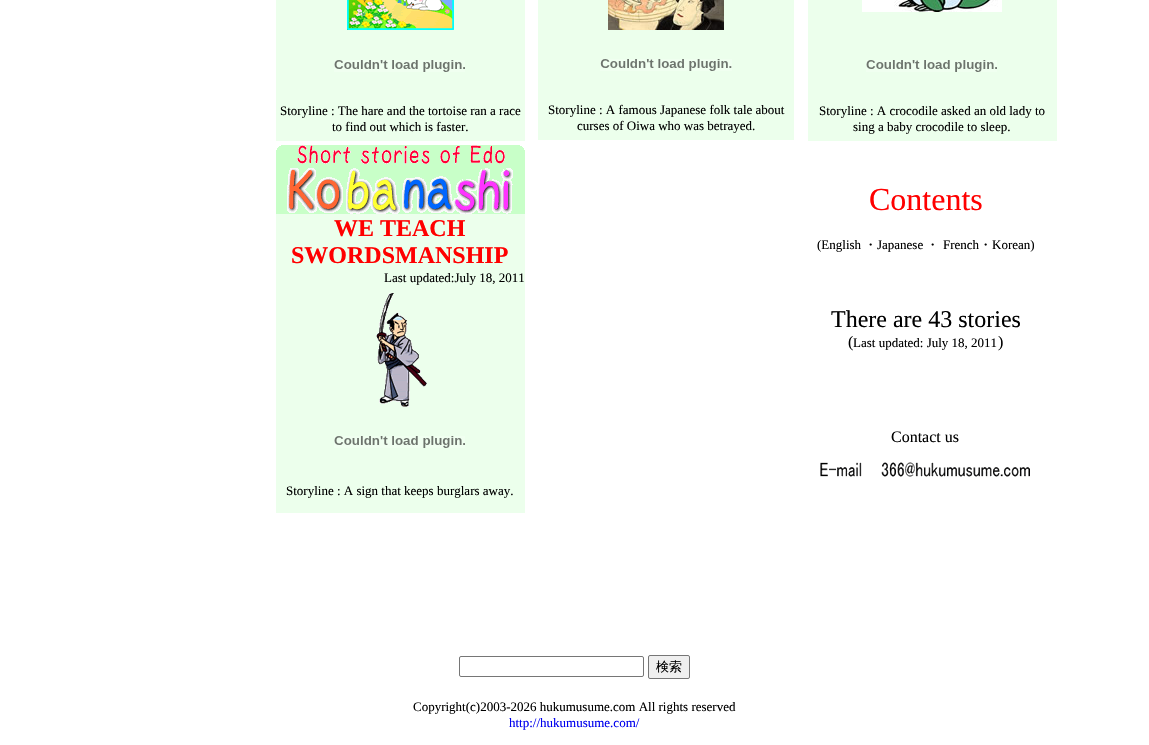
void draw(SkCanvas* canvas) {
	SkPaint paint;
	paint.setAntiAlias(true);
	canvas->clear(0xffffffff);
	paint.setColor(0xffecffec);
	canvas->drawRect(SkRect::MakeXYWH(276, 0, 249, 141), paint);
	canvas->drawImageRect(SkImages::DeferredFromEncodedData(SkData::MakeFromFileName("img1.png")), SkRect::MakeXYWH(347, 0, 107, 30), SkSamplingOptions());
	canvas->drawImageRect(SkImages::DeferredFromEncodedData(SkData::MakeFromFileName("img2.png")), SkRect::MakeXYWH(334, 60, 131, 12), SkSamplingOptions());
	SkFont f1(fontMgr->matchFamilyStyle("Liberation Serif", SkFontStyle::Normal()), 13);
	f1.setSubpixel(true);
	paint.setColor(0xff000000);
	canvas->drawString("Storyline : The hare and the tortoise ran a race", 280, 115, f1, paint);
	canvas->drawString("to find out which is faster.", 332, 131, f1, paint);
	paint.setColor(0xffecffec);
	canvas->drawRect(SkRect::MakeXYWH(538, 0, 256, 140), paint);
	canvas->drawImageRect(SkImages::DeferredFromEncodedData(SkData::MakeFromFileName("img3.png")), SkRect::MakeXYWH(608, 0, 116, 30), SkSamplingOptions());
	canvas->drawImageRect(SkImages::DeferredFromEncodedData(SkData::MakeFromFileName("img4.png")), SkRect::MakeXYWH(600, 59, 132, 12), SkSamplingOptions());
	paint.setColor(0xff000000);
	canvas->drawString("Storyline : A famous Japanese folk tale about", 548, 114, f1, paint);
	canvas->drawString("curses of Oiwa who was betrayed.", 577, 130, f1, paint);
	paint.setColor(0xffecffec);
	canvas->drawRect(SkRect::MakeXYWH(808, 0, 249, 141), paint);
	canvas->drawImageRect(SkImages::DeferredFromEncodedData(SkData::MakeFromFileName("img5.png")), SkRect::MakeXYWH(862, 0, 140, 12), SkSamplingOptions());
	canvas->drawImageRect(SkImages::DeferredFromEncodedData(SkData::MakeFromFileName("img6.png")), SkRect::MakeXYWH(866, 60, 131, 12), SkSamplingOptions());
	paint.setColor(0xff000000);
	canvas->drawString("Storyline : A crocodile asked an old lady to", 819, 115, f1, paint);
	canvas->drawString("sing a baby crocodile to sleep.", 853, 131, f1, paint);
	paint.setColor(0xffecffec);
	canvas->drawRect(SkRect::MakeXYWH(276, 214, 249, 299), paint);
	paint.setColor(0xffc8ffc8);
	canvas->drawRect(SkRect::MakeXYWH(276, 145, 249, 69), paint);
	canvas->drawImageRect(SkImages::DeferredFromEncodedData(SkData::MakeFromFileName("img7.png")), SkRect::MakeXYWH(276, 145, 5, 5), SkSamplingOptions());
	canvas->drawImageRect(SkImages::DeferredFromEncodedData(SkData::MakeFromFileName("img8.png")), SkRect::MakeXYWH(287, 145, 226, 69), SkSamplingOptions());
	canvas->drawImageRect(SkImages::DeferredFromEncodedData(SkData::MakeFromFileName("img9.png")), SkRect::MakeXYWH(520, 145, 5, 5), SkSamplingOptions());
	SkFont f2(fontMgr->matchFamilyStyle("Liberation Serif", SkFontStyle::Bold()), 24);
	f2.setSubpixel(true);
	paint.setColor(0xffff0000);
	canvas->drawString("WE TEACH", 334, 236, f2, paint);
	canvas->drawString("SWORDSMANSHIP", 291, 263, f2, paint);
	paint.setColor(0xff000000);
	canvas->drawString("Last updated:July 18, 2011", 384, 282, f1, paint);
	canvas->drawImageRect(SkImages::DeferredFromEncodedData(SkData::MakeFromFileName("img10.png")), SkRect::MakeXYWH(376, 293, 51, 114), SkSamplingOptions());
	canvas->drawImageRect(SkImages::DeferredFromEncodedData(SkData::MakeFromFileName("img2.png")), SkRect::MakeXYWH(334, 436, 131, 12), SkSamplingOptions());
	canvas->drawString("Storyline : A sign that keeps burglars away.", 286, 495, f1, paint);
	SkFont f3(fontMgr->matchFamilyStyle("Liberation Serif", SkFontStyle::Normal()), 32);
	f3.setSubpixel(true);
	paint.setColor(0xffff0000);
	canvas->drawString("Contents", 869, 210, f3, paint);
	paint.setColor(0xff000000);
	canvas->drawString("(English", 817, 249, f1, paint);
	SkFont f4(fontMgr->matchFamilyStyle("WenQuanYi Zen Hei", SkFontStyle(500, SkFontStyle::kNormal_Width, SkFontStyle::kUpright_Slant)), 13);
	f4.setSubpixel(true);
	canvas->drawString("・", 864, 249, f4, paint);
	canvas->drawString("Japanese", 877, 249, f1, paint);
	canvas->drawString("・", 926, 249, f4, paint);
	canvas->drawString("French", 943, 249, f1, paint);
	canvas->drawString("・", 979, 249, f4, paint);
	canvas->drawString("Korean)", 992, 249, f1, paint);
	SkFont f5(fontMgr->matchFamilyStyle("Liberation Serif", SkFontStyle::Normal()), 24);
	f5.setSubpixel(true);
	canvas->drawString("There are 43 stories", 831, 327, f5, paint);
	SkFont f6(fontMgr->matchFamilyStyle("Liberation Serif", SkFontStyle::Normal()), 16);
	f6.setSubpixel(true);
	canvas->drawString("(", 848, 347, f6, paint);
	canvas->drawString("Last updated: July 18, 2011", 853, 347, f1, paint);
	canvas->drawString(")", 998, 347, f6, paint);
	canvas->drawString("Contact us", 891, 442, f6, paint);
	canvas->drawImageRect(SkImages::DeferredFromEncodedData(SkData::MakeFromFileName("img11.png")), SkRect::MakeXYWH(820, 462, 210, 15), SkSamplingOptions());
	paint.setStroke(true);
	paint.setStrokeWidth(1);
	paint.setColor(0xff767676);
	canvas->drawRoundRect(SkRect::MakeXYWH(459.5, 656.5, 184, 20), 1.5, 1.5, paint);
	paint.setStroke(false);
	paint.setColor(0xffefefef);
	canvas->drawRoundRect(SkRect::MakeXYWH(648.5, 655.5, 41, 23), 1.5, 1.5, paint);
	paint.setStroke(true);
	paint.setColor(0xff767676);
	canvas->drawRoundRect(SkRect::MakeXYWH(648.5, 655.5, 41, 23), 1.5, 1.5, paint);
	paint.setStroke(false);
	paint.setColor(0xff000000);
	canvas->drawString("検索", 656, 671, f4, paint);
	canvas->drawString("Copyright(c)2003-2026 hukumusume.com All rights reserved", 413, 711, f1, paint);
	paint.setColor(0xff0000ee);
	canvas->drawString("http://hukumusume.com/", 509, 727, f1, paint);
}
